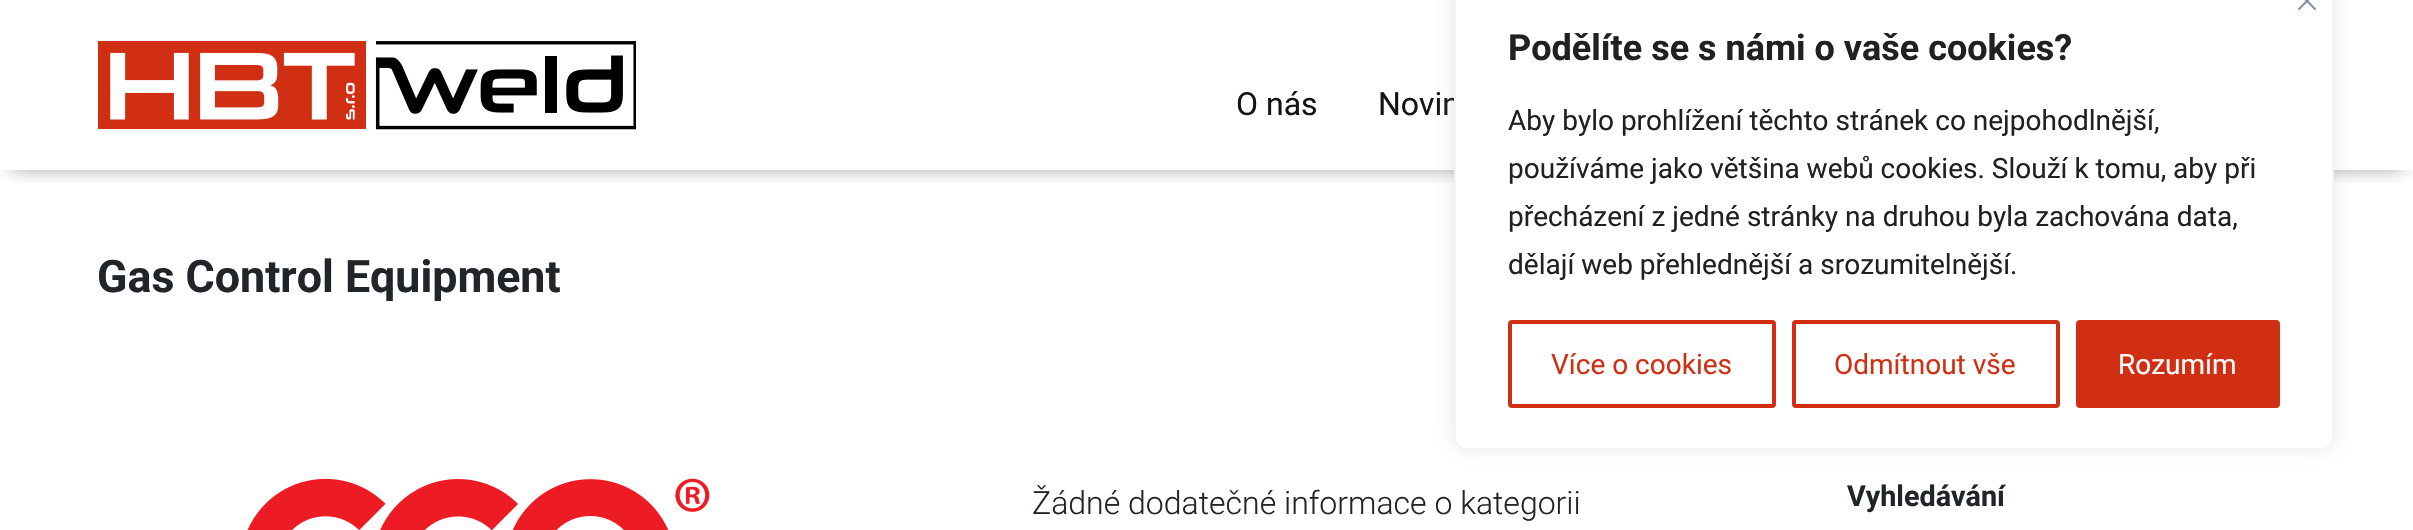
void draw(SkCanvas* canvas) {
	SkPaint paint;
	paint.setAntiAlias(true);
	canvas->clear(0xffffffff);
	canvas->save();
	canvas->clipRect(SkRect::MakeXYWH(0, 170, 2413, 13));
	paint.setColor(0x80000000);
	paint.setMaskFilter(SkMaskFilter::MakeBlur(kNormal_SkBlurStyle, 10));
	canvas->drawRect(SkRect::MakeXYWH(12, 20, 2390, 146), paint);
	paint.setMaskFilter(nullptr);
	canvas->restore();
	canvas->drawImageRect(SkImages::DeferredFromEncodedData(SkData::MakeFromFileName("img1.png")), SkRect::MakeXYWH(98, 41, 538, 89), SkSamplingOptions());
	SkFont f1(fontMgr->matchFamilyStyle("Roboto", SkFontStyle::Normal()), 32);
	f1.setSubpixel(true);
	paint.setColor(0xff131313);
	canvas->drawString("O nás", 1236, 115, f1, paint);
	canvas->drawString("Novin", 1378, 115, f1, paint);
	paint.setColor(0x4dacabab);
	paint.setMaskFilter(SkMaskFilter::MakeBlur(kNormal_SkBlurStyle, 10));
	canvas->drawRoundRect(SkRect::MakeXYWH(1454, -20, 880, 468), 12, 12, paint);
	paint.setMaskFilter(nullptr);
	paint.setColor(0xffffffff);
	canvas->drawRoundRect(SkRect::MakeXYWH(1455, -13, 878, 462), 11, 11, paint);
	paint.setStroke(true);
	paint.setStrokeWidth(2);
	paint.setColor(0xfff4f4f4);
	canvas->drawRoundRect(SkRect::MakeXYWH(1455, -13, 878, 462), 11, 11, paint);
	canvas->drawImageRect(SkImages::DeferredFromEncodedData(SkData::MakeFromFileName("img2.png")), SkRect::MakeXYWH(2298, 0, 18, 10), SkSamplingOptions());
	SkFont f2(fontMgr->matchFamilyStyle("Roboto", SkFontStyle::Bold()), 36);
	f2.setSubpixel(true);
	paint.setStroke(false);
	paint.setColor(0xff212121);
	canvas->drawString("Podělíte se s námi o vaše cookies?", 1508, 60, f2, paint);
	SkFont f3(fontMgr->matchFamilyStyle("Roboto", SkFontStyle::Normal()), 28);
	f3.setSubpixel(true);
	canvas->drawString("Aby bylo prohlížení těchto stránek co nejpohodlnější,", 1508, 130, f3, paint);
	canvas->drawString("používáme jako většina webů cookies. Slouží k tomu, aby při", 1508, 178, f3, paint);
	canvas->drawString("přecházení z jedné stránky na druhou byla zachována data,", 1508, 226, f3, paint);
	canvas->drawString("dělají web přehlednější a srozumitelnější.", 1508, 274, f3, paint);
	paint.setStroke(true);
	paint.setStrokeWidth(4);
	paint.setColor(0xffd12f14);
	canvas->drawRoundRect(SkRect::MakeXYWH(1510, 322, 264, 84), 2, 2, paint);
	paint.setStroke(false);
	canvas->drawString("Více o cookies", 1551, 374, f3, paint);
	paint.setStroke(true);
	canvas->drawRoundRect(SkRect::MakeXYWH(1794, 322, 264, 84), 2, 2, paint);
	paint.setStroke(false);
	canvas->drawString("Odmítnout vše", 1834, 374, f3, paint);
	canvas->drawRoundRect(SkRect::MakeXYWH(2078, 322, 200, 84), 2, 2, paint);
	paint.setStroke(true);
	canvas->drawRoundRect(SkRect::MakeXYWH(2078, 322, 200, 84), 2, 2, paint);
	paint.setStroke(false);
	paint.setColor(0xffffffff);
	canvas->drawString("Rozumím", 2118, 374, f3, paint);
	SkFont f4(fontMgr->matchFamilyStyle("Roboto", SkFontStyle::Bold()), 44.75);
	f4.setSubpixel(true);
	paint.setColor(0xff212529);
	canvas->drawString("Gas Control Equipment", 97, 292, f4, paint);
	canvas->drawImageRect(SkImages::DeferredFromEncodedData(SkData::MakeFromFileName("img3.png")), SkRect::MakeXYWH(247, 478, 463, 52), SkSamplingOptions());
	SkFont f5(fontMgr->matchFamilyStyle("Roboto", SkFontStyle(300, SkFontStyle::kNormal_Width, SkFontStyle::kUpright_Slant)), 32);
	f5.setSubpixel(true);
	canvas->drawString("Žádné dodatečné informace o kategorii", 1032, 514, f5, paint);
	SkFont f6(fontMgr->matchFamilyStyle("Roboto", SkFontStyle::Bold()), 28.75);
	f6.setSubpixel(true);
	canvas->drawString("Vyhledávání", 1847, 506, f6, paint);
}
